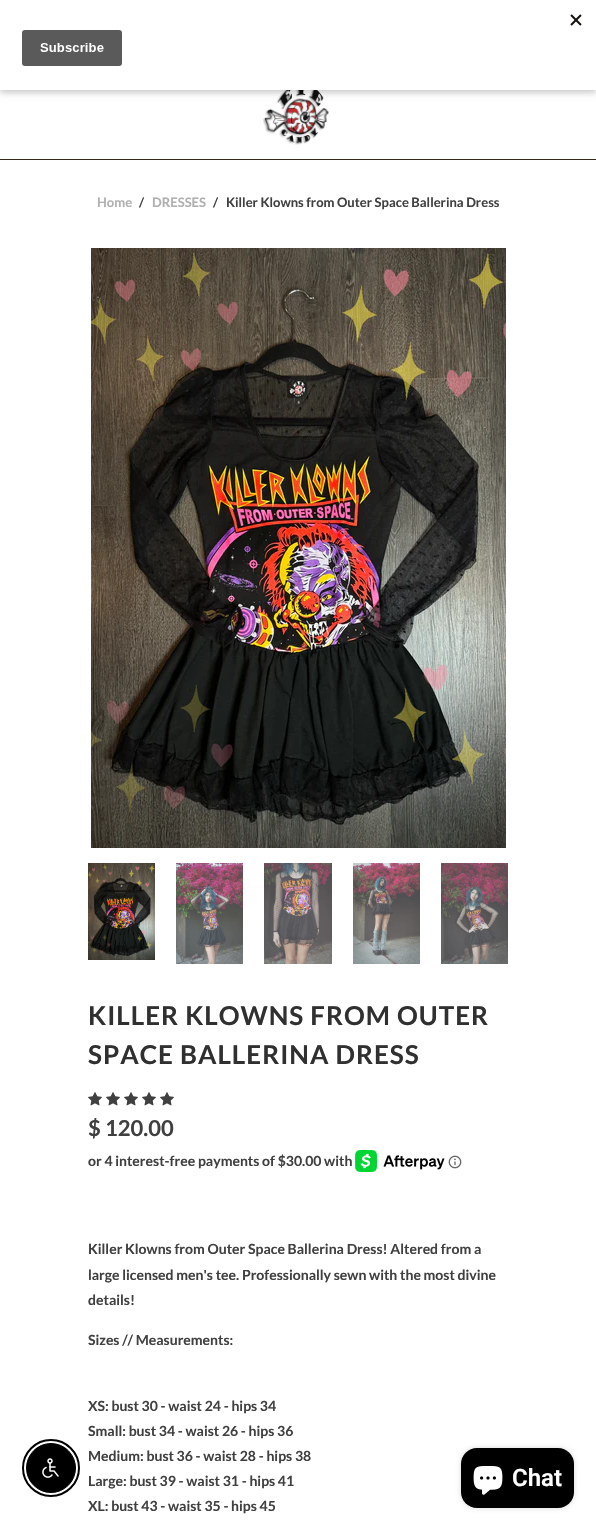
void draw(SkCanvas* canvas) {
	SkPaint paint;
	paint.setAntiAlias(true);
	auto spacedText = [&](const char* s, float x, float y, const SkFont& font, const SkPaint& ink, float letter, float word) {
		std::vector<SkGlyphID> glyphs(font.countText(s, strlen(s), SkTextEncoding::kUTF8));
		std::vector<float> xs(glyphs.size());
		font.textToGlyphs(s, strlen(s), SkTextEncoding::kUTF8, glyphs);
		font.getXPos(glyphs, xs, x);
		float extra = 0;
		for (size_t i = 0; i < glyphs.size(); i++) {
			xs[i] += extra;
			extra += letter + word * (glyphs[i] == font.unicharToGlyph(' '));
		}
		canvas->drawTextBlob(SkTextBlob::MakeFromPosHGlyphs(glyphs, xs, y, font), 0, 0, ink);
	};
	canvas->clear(0xffffffff);
	canvas->drawImageRect(SkImages::DeferredFromEncodedData(SkData::MakeFromFileName("img2.png")), SkRect::MakeXYWH(263, 90, 66, 55), SkSamplingOptions());
	paint.setColor(0x33000000);
	paint.setMaskFilter(SkMaskFilter::MakeBlur(kNormal_SkBlurStyle, 3));
	canvas->drawRect(SkRect::MakeXYWH(0, 3, 596, 90), paint);
	paint.setMaskFilter(nullptr);
	paint.setColor(0xffffffff);
	canvas->drawRect(SkRect::MakeXYWH(0, 0, 596, 90), paint);
	canvas->drawImageRect(SkImages::DeferredFromEncodedData(SkData::MakeFromFileName("img1.png")), SkRect::MakeXYWH(22, 14, 560, 52), SkSamplingOptions());
	paint.setColor(0xff342a17);
	canvas->drawRect(SkRect::MakeXYWH(0, 159, 596, 1), paint);
	paint.setStroke(true);
	paint.setStrokeWidth(2);
	paint.setColor(0xff000000);
	canvas->drawCircle(51, 1468, 28, paint);
	paint.setStroke(false);
	canvas->drawCircle(51, 1468, 24.5, paint);
	paint.setStroke(true);
	paint.setStrokeWidth(1);
	canvas->drawCircle(51, 1468, 24.5, paint);
	canvas->drawImageRect(SkImages::DeferredFromEncodedData(SkData::MakeFromFileName("img3.png")), SkRect::MakeXYWH(42, 1458, 17, 20), SkSamplingOptions());
	SkFont f1(fontMgr->matchFamilyStyle("Lato", SkFontStyle::Bold()), 13);
	f1.setSubpixel(true);
	paint.setStroke(false);
	paint.setColor(0xffb0b0b0);
	canvas->drawString("Home", 97, 207, f1, paint);
	paint.setColor(0xff404040);
	canvas->drawString("/", 139, 207, f1, paint);
	paint.setColor(0xffb0b0b0);
	canvas->drawString("DRESSES", 152, 207, f1, paint);
	paint.setColor(0xff404040);
	canvas->drawString("/", 213, 207, f1, paint);
	canvas->drawString("Killer Klowns from Outer Space Ballerina Dress", 226, 207, f1, paint);
	canvas->drawImageRect(SkImages::DeferredFromEncodedData(SkData::MakeFromFileName("img4.png")), SkRect::MakeXYWH(91, 248, 415, 600), SkSamplingOptions());
	canvas->drawImageRect(SkImages::DeferredFromEncodedData(SkData::MakeFromFileName("img5.png")), SkRect::MakeXYWH(88, 863, 67, 97), SkSamplingOptions());
	canvas->drawImageRect(SkImages::DeferredFromEncodedData(SkData::MakeFromFileName("img6.png")), SkRect::MakeXYWH(176, 863, 67, 101), SkSamplingOptions());
	canvas->drawImageRect(SkImages::DeferredFromEncodedData(SkData::MakeFromFileName("img7.png")), SkRect::MakeXYWH(264, 863, 68, 101), SkSamplingOptions());
	canvas->drawImageRect(SkImages::DeferredFromEncodedData(SkData::MakeFromFileName("img8.png")), SkRect::MakeXYWH(353, 863, 67, 101), SkSamplingOptions());
	canvas->drawImageRect(SkImages::DeferredFromEncodedData(SkData::MakeFromFileName("img9.png")), SkRect::MakeXYWH(441, 863, 67, 101), SkSamplingOptions());
	SkFont f2(fontMgr->matchFamilyStyle("Lato", SkFontStyle::Bold()), 26);
	f2.setSubpixel(true);
	paint.setColor(0xff303030);
	spacedText("KILLER KLOWNS FROM OUTER", 88, 1025, f2, paint, 1, 0);
	spacedText("SPACE BALLERINA DRESS", 88, 1064, f2, paint, 1, 0);
	canvas->drawImageRect(SkImages::DeferredFromEncodedData(SkData::MakeFromFileName("img10.png")), SkRect::MakeXYWH(88, 1092, 14, 14), SkSamplingOptions());
	canvas->drawImageRect(SkImages::DeferredFromEncodedData(SkData::MakeFromFileName("img10.png")), SkRect::MakeXYWH(106, 1092, 14, 14), SkSamplingOptions());
	canvas->drawImageRect(SkImages::DeferredFromEncodedData(SkData::MakeFromFileName("img10.png")), SkRect::MakeXYWH(124, 1092, 14, 14), SkSamplingOptions());
	canvas->drawImageRect(SkImages::DeferredFromEncodedData(SkData::MakeFromFileName("img10.png")), SkRect::MakeXYWH(142, 1092, 14, 14), SkSamplingOptions());
	canvas->drawImageRect(SkImages::DeferredFromEncodedData(SkData::MakeFromFileName("img10.png")), SkRect::MakeXYWH(160, 1092, 14, 14), SkSamplingOptions());
	SkFont f3(fontMgr->matchFamilyStyle("Lato", SkFontStyle::Bold()), 22);
	f3.setSubpixel(true);
	paint.setColor(0xff404040);
	canvas->drawString("$ 120.00", 88, 1136, f3, paint);
	SkFont f4(fontMgr->matchFamilyStyle("Lato", SkFontStyle::Bold()), 14);
	f4.setSubpixel(true);
	canvas->drawString("or 4 interest-free payments of $30.00 with", 88, 1166, f4, paint);
	canvas->drawImageRect(SkImages::DeferredFromEncodedData(SkData::MakeFromFileName("img11.png")), SkRect::MakeXYWH(355, 1150, 90, 22), SkSamplingOptions());
	canvas->drawImageRect(SkImages::DeferredFromEncodedData(SkData::MakeFromFileName("img12.png")), SkRect::MakeXYWH(448, 1155, 14, 14), SkSamplingOptions());
	canvas->drawString("Killer Klowns from Outer Space Ballerina Dress! Altered from a", 88, 1254, f4, paint);
	canvas->drawString("large licensed men's tee. Professionally sewn with the most divine", 88, 1280, f4, paint);
	canvas->drawString("details!", 88, 1305, f4, paint);
	canvas->drawString("Sizes // Measurements:", 88, 1345, f4, paint);
	canvas->drawString("XS: bust 30 - waist 24 - hips 34", 88, 1411, f4, paint);
	canvas->drawString("Small: bust 34 - waist 26 - hips 36", 88, 1436, f4, paint);
	canvas->drawString("Medium: bust 36 - waist 28 - hips 38", 88, 1461, f4, paint);
	canvas->drawString("Large: bust 39 - waist 31 - hips 41", 88, 1486, f4, paint);
	canvas->drawString("XL: bust 43 - waist 35 - hips 45", 88, 1511, f4, paint);
	paint.setColor(0x26000000);
	paint.setMaskFilter(SkMaskFilter::MakeBlur(kNormal_SkBlurStyle, 2.5));
	canvas->drawRoundRect(SkRect::MakeXYWH(461, 1448, 113, 60), 16, 16, paint);
	paint.setMaskFilter(nullptr);
	paint.setColor(0xff000000);
	canvas->drawRoundRect(SkRect::MakeXYWH(461, 1448, 113, 60), 16, 16, paint);
	canvas->drawImageRect(SkImages::DeferredFromEncodedData(SkData::MakeFromFileName("img13.png")), SkRect::MakeXYWH(473, 1466, 30, 29), SkSamplingOptions());
	SkFont f5(fontMgr->matchFamilyStyle("Roboto", SkFontStyle(600, SkFontStyle::kNormal_Width, SkFontStyle::kUpright_Slant)), 24);
	f5.setSubpixel(true);
	paint.setColor(0xffffffff);
	canvas->drawString("Chat", 512, 1486, f5, paint);
}
